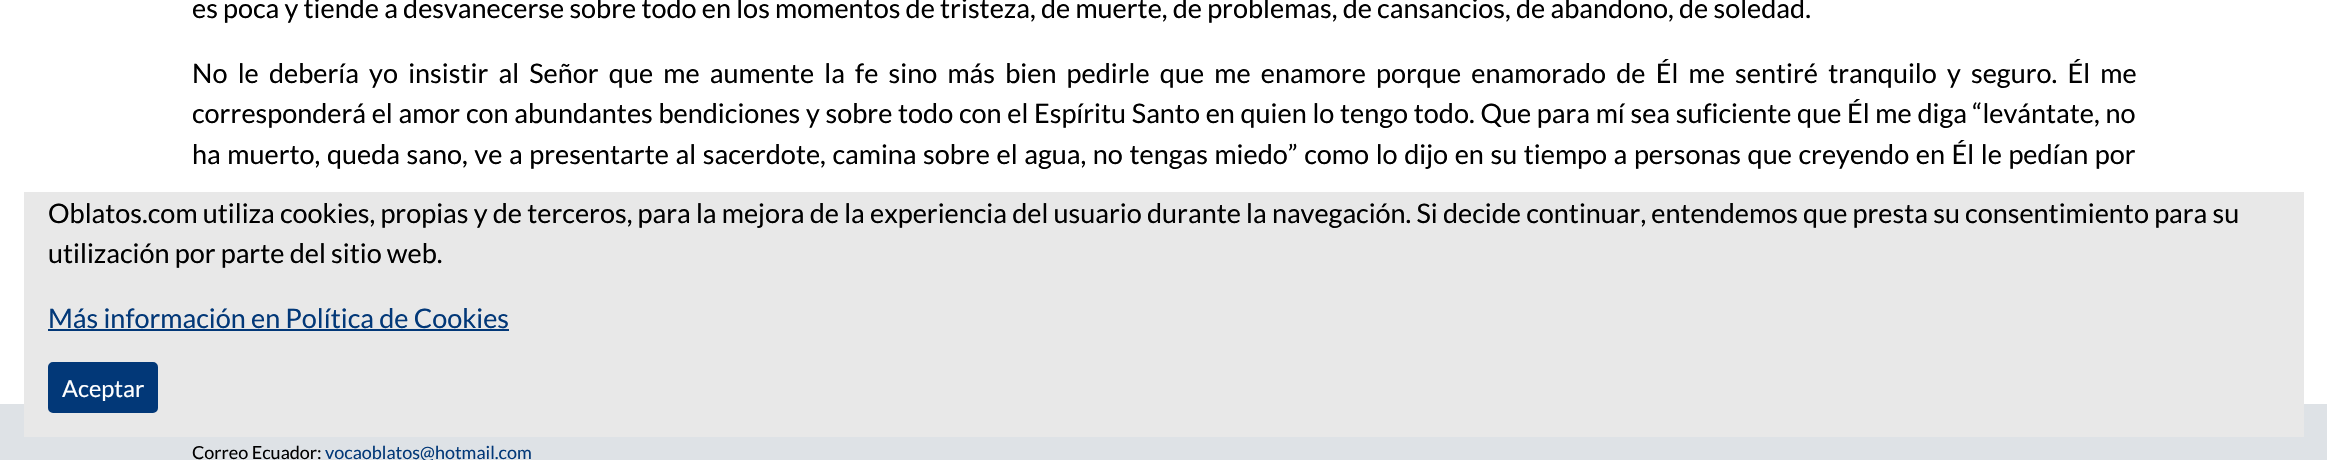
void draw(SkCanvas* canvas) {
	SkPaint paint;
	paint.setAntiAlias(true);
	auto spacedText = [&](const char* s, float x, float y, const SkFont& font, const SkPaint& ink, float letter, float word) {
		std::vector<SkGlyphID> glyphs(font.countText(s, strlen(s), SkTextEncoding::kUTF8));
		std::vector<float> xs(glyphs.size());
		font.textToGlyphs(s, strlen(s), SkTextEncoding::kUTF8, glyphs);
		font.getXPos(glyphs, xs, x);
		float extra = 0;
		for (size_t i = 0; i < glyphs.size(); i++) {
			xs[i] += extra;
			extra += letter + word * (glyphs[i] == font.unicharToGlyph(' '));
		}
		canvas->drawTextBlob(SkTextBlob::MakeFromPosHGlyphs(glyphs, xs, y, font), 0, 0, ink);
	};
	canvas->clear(0xffffffff);
	SkFont f1(fontMgr->matchFamilyStyle("Lato", SkFontStyle::Normal()), 27);
	f1.setSubpixel(true);
	paint.setColor(0xff000000);
	canvas->drawString("es poca y tiende a desvanecerse sobre todo en los momentos de tristeza, de muerte, de problemas, de cansancios, de abandono, de soledad.", 192, 18, f1, paint);
	spacedText("No le debería yo insistir al Señor que me aumente la fe sino más bien pedirle que me enamore porque enamorado de Él me sentiré tranquilo y seguro. Él me", 192, 83, f1, paint, 0, 5);
	spacedText("corresponderá el amor con abundantes bendiciones y sobre todo con el Espíritu Santo en quien lo tengo todo. Que para mí sea suficiente que Él me diga “levántate, no", 192, 123, f1, paint, 0, 0.5);
	spacedText("ha muerto, queda sano, ve a presentarte al sacerdote, camina sobre el agua, no tengas miedo” como lo dijo en su tiempo a personas que creyendo en Él le pedían por", 192, 164, f1, paint, 0, 1.4);
	paint.setColor(0xffdee2e6);
	canvas->drawRect(SkRect::MakeXYWH(0, 404, 2327, 56), paint);
	paint.setColor(0xffe8e8e8);
	canvas->drawRect(SkRect::MakeXYWH(24, 192, 2280, 245), paint);
	paint.setColor(0xff000000);
	canvas->drawString("Oblatos.com utiliza cookies, propias y de terceros, para la mejora de la experiencia del usuario durante la navegación. Si decide continuar, entendemos que presta su consentimiento para su", 48, 223, f1, paint);
	canvas->drawString("utilización por parte del sitio web.", 48, 263, f1, paint);
	paint.setColor(0xff023878);
	canvas->drawString("Más información en Política de Cookies", 48, 328, f1, paint);
	canvas->drawRect(SkRect::MakeXYWH(48, 329, 461, 2), paint);
	canvas->drawRoundRect(SkRect::MakeXYWH(49, 363, 108, 49), 4, 4, paint);
	paint.setStroke(true);
	paint.setStrokeWidth(2);
	canvas->drawRoundRect(SkRect::MakeXYWH(49, 363, 108, 49), 4, 4, paint);
	SkFont f2(fontMgr->matchFamilyStyle("Lato", SkFontStyle::Normal()), 23.5);
	f2.setSubpixel(true);
	paint.setStroke(false);
	paint.setColor(0xffffffff);
	canvas->drawString("Aceptar", 62, 397, f2, paint);
	SkFont f3(fontMgr->matchFamilyStyle("Lato", SkFontStyle::Normal()), 18);
	f3.setSubpixel(true);
	paint.setColor(0xff000000);
	canvas->drawString("Correo Ecuador:", 192, 459, f3, paint);
	paint.setColor(0xff023878);
	canvas->drawString("vocaoblatos@hotmail.com", 325, 459, f3, paint);
}
